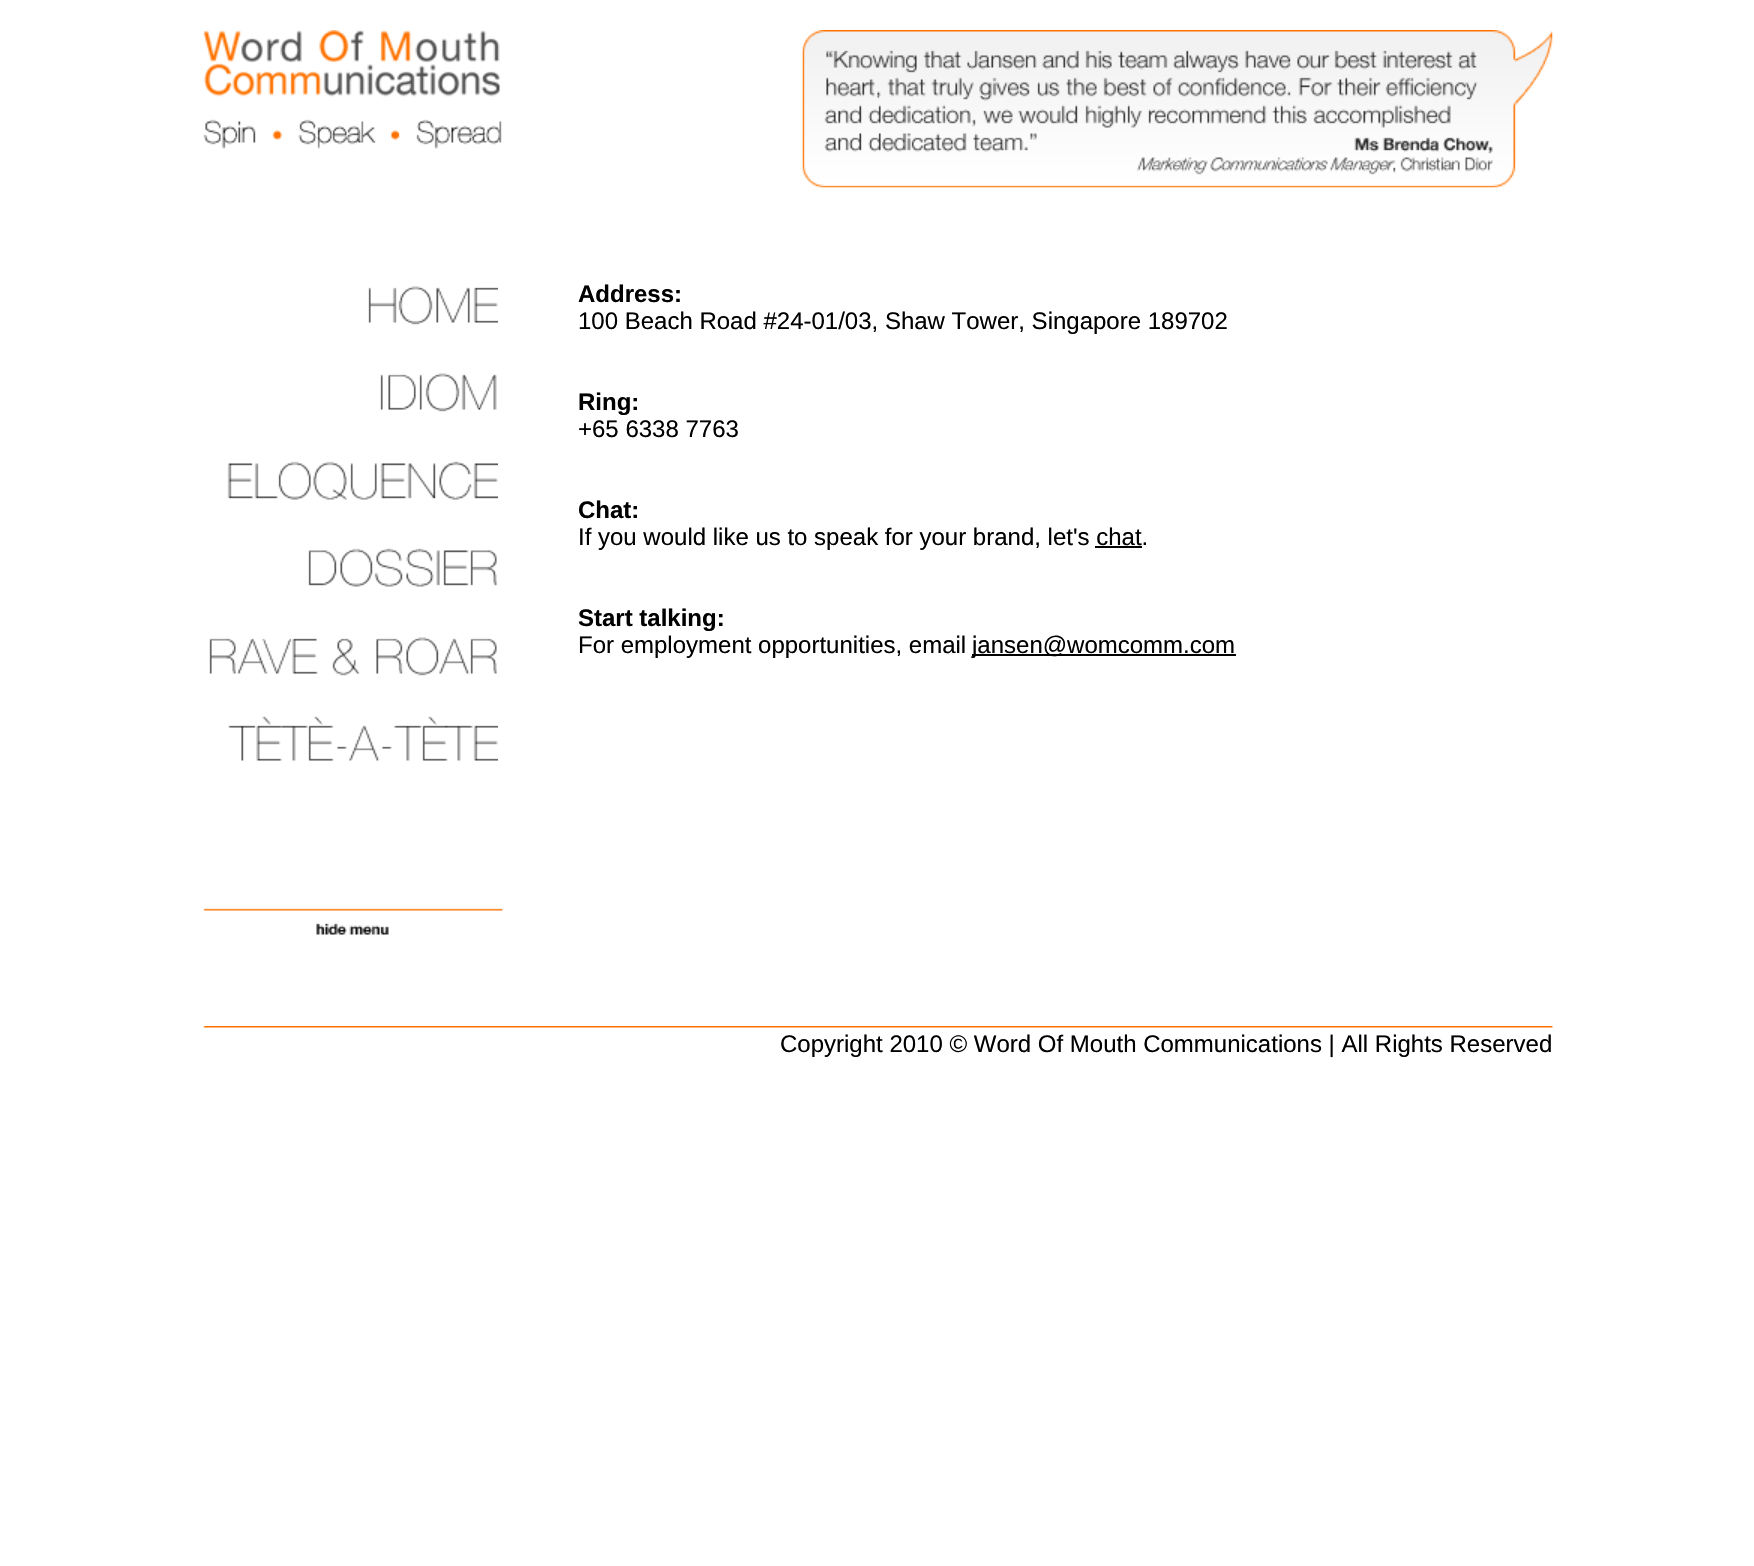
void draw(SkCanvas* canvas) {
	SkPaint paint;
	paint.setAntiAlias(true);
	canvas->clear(0xffffffff);
	canvas->drawImageRect(SkImages::DeferredFromEncodedData(SkData::MakeFromFileName("img1.png")), SkRect::MakeXYWH(203, 30, 299, 119), SkSamplingOptions());
	canvas->drawImageRect(SkImages::DeferredFromEncodedData(SkData::MakeFromFileName("img2.png")), SkRect::MakeXYWH(802, 30, 751, 158), SkSamplingOptions());
	canvas->drawImageRect(SkImages::DeferredFromEncodedData(SkData::MakeFromFileName("img3.png")), SkRect::MakeXYWH(203, 908, 300, 27), SkSamplingOptions());
	canvas->drawImageRect(SkImages::DeferredFromEncodedData(SkData::MakeFromFileName("img4.png")), SkRect::MakeXYWH(368, 286, 130, 39), SkSamplingOptions());
	canvas->drawImageRect(SkImages::DeferredFromEncodedData(SkData::MakeFromFileName("img5.png")), SkRect::MakeXYWH(380, 373, 117, 39), SkSamplingOptions());
	canvas->drawImageRect(SkImages::DeferredFromEncodedData(SkData::MakeFromFileName("img6.png")), SkRect::MakeXYWH(227, 461, 271, 39), SkSamplingOptions());
	canvas->drawImageRect(SkImages::DeferredFromEncodedData(SkData::MakeFromFileName("img7.png")), SkRect::MakeXYWH(308, 548, 189, 39), SkSamplingOptions());
	canvas->drawImageRect(SkImages::DeferredFromEncodedData(SkData::MakeFromFileName("img8.png")), SkRect::MakeXYWH(209, 637, 288, 39), SkSamplingOptions());
	canvas->drawImageRect(SkImages::DeferredFromEncodedData(SkData::MakeFromFileName("img9.png")), SkRect::MakeXYWH(228, 716, 270, 45), SkSamplingOptions());
	SkFont f1(fontMgr->matchFamilyStyle("Liberation Sans", SkFontStyle::Bold()), 24);
	f1.setSubpixel(true);
	paint.setColor(0xff000000);
	canvas->drawString("Address:", 578, 302, f1, paint);
	SkFont f2(fontMgr->matchFamilyStyle("Liberation Sans", SkFontStyle::Normal()), 24);
	f2.setSubpixel(true);
	canvas->drawString("100 Beach Road #24-01/03, Shaw Tower, Singapore 189702", 578, 329, f2, paint);
	canvas->drawString("Ring:", 578, 410, f1, paint);
	canvas->drawString("+65 6338 7763", 578, 437, f2, paint);
	canvas->drawString("Chat:", 578, 518, f1, paint);
	canvas->drawString("If you would like us to speak for your brand, let's chat.", 578, 545, f2, paint);
	canvas->drawRect(SkRect::MakeXYWH(1095, 546, 47, 2), paint);
	canvas->drawString("Start talking:", 578, 626, f1, paint);
	canvas->drawString("For employment opportunities, email", 578, 653, f2, paint);
	canvas->drawRect(SkRect::MakeXYWH(972, 654, 264, 2), paint);
	canvas->drawString("jansen@womcomm.com", 972, 653, f2, paint);
	canvas->drawImageRect(SkImages::DeferredFromEncodedData(SkData::MakeFromFileName("img10.png")), SkRect::MakeXYWH(203, 1026, 1350, 2), SkSamplingOptions());
	canvas->drawString("Copyright 2010 © Word Of Mouth Communications | All Rights Reserved", 780, 1052, f2, paint);
}
